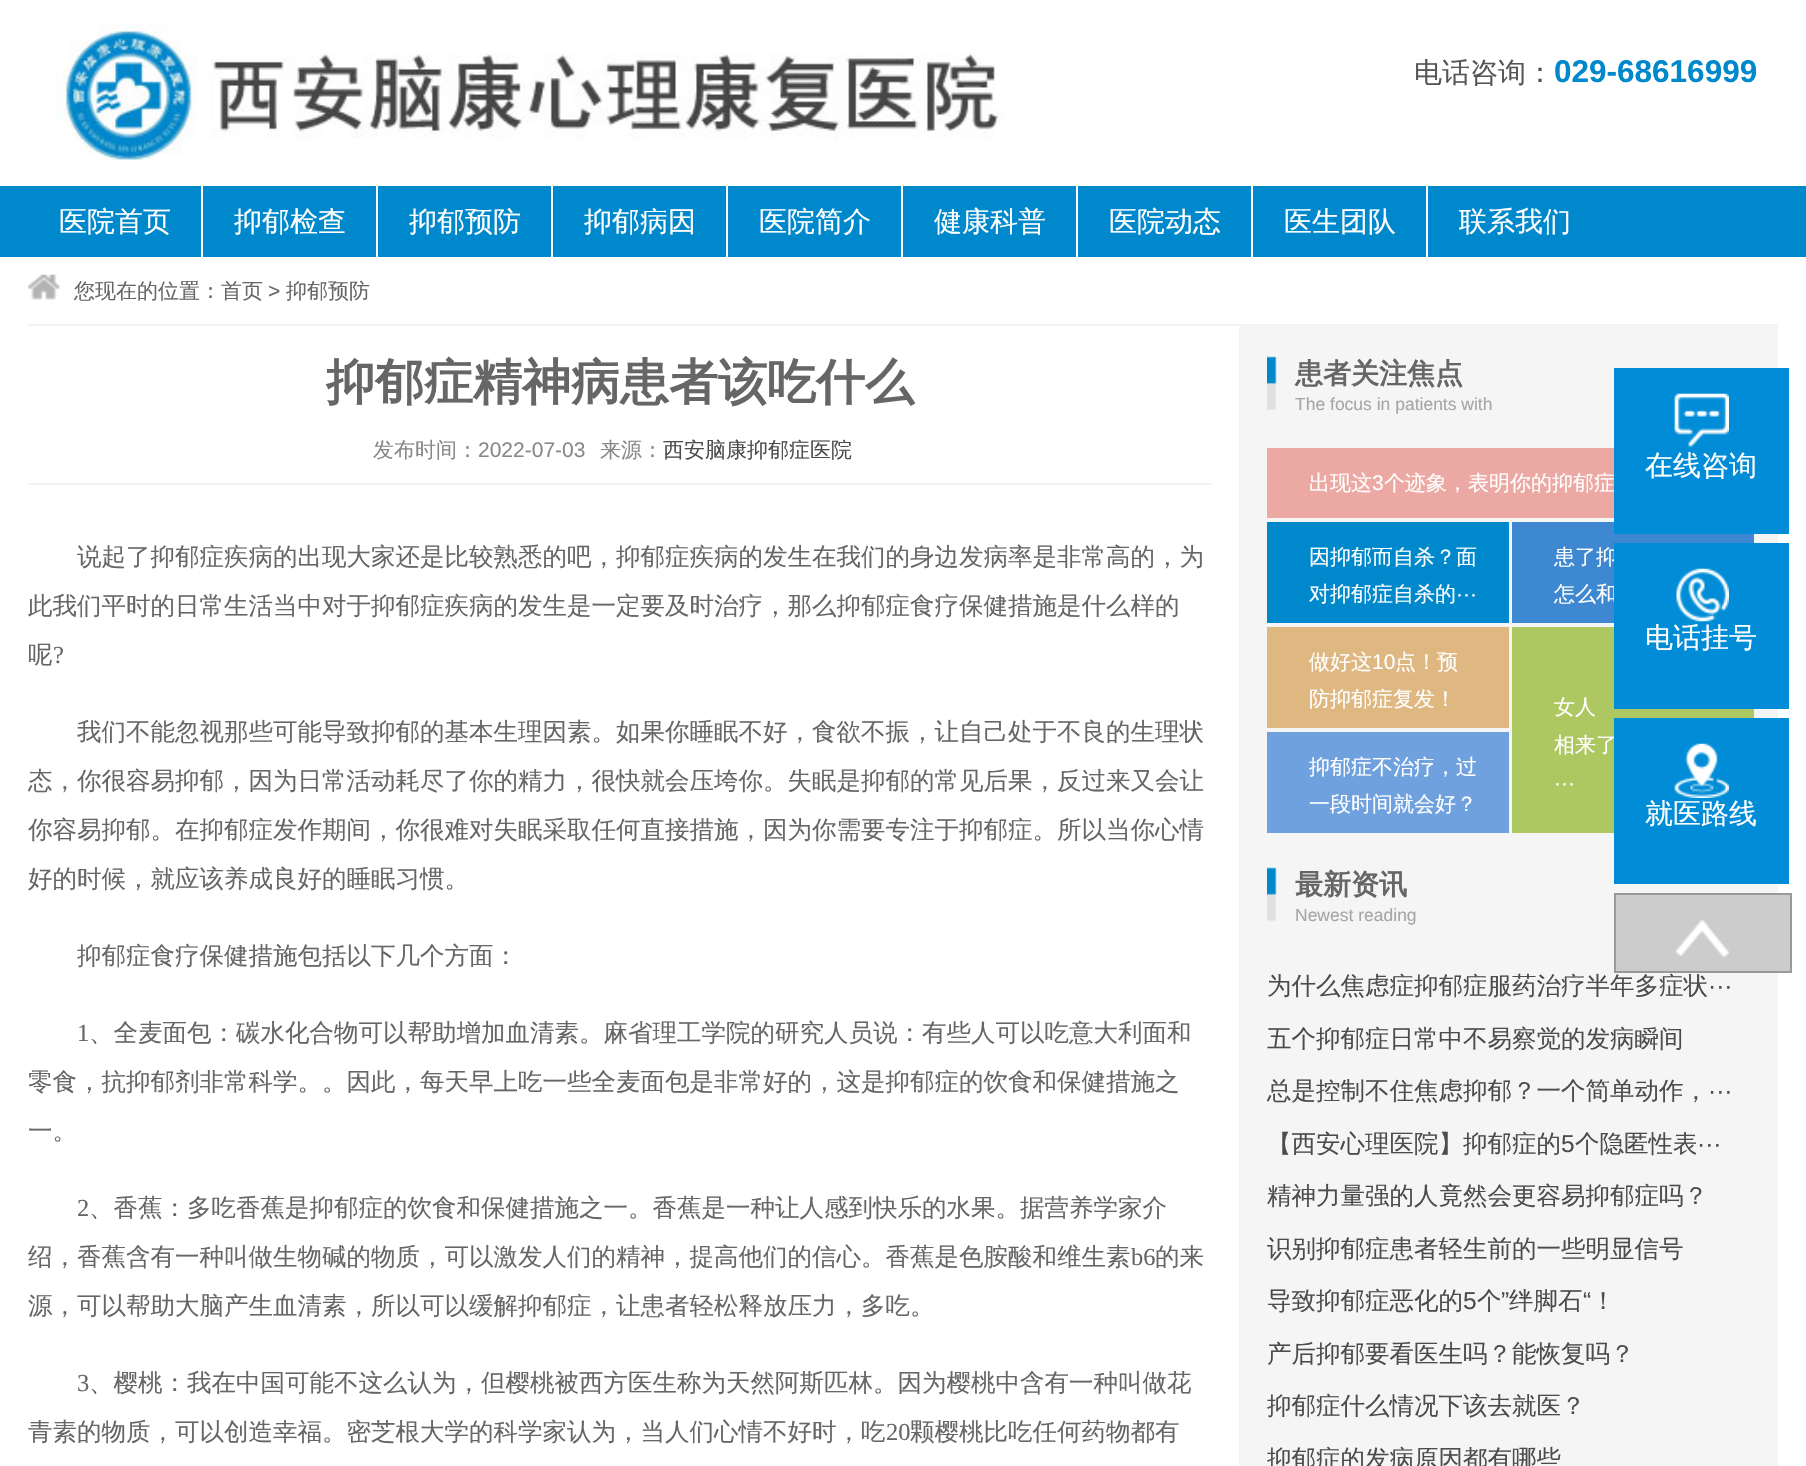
void draw(SkCanvas* canvas) {
	SkPaint paint;
	paint.setAntiAlias(true);
	canvas->clear(0xffffffff);
	canvas->drawImageRect(SkImages::DeferredFromEncodedData(SkData::MakeFromFileName("img1.png")), SkRect::MakeXYWH(56, 24, 950, 137), SkSamplingOptions());
	SkFont f1(fontMgr->matchFamilyStyle("WenQuanYi Zen Hei", SkFontStyle(500, SkFontStyle::kNormal_Width, SkFontStyle::kUpright_Slant)), 28);
	f1.setSubpixel(true);
	paint.setColor(0xff555555);
	canvas->drawString("电话咨询：", 1414, 82, f1, paint);
	SkFont f2(fontMgr->matchFamilyStyle("Liberation Sans", SkFontStyle::Bold()), 31.5);
	f2.setSubpixel(true);
	paint.setColor(0xff0088cc);
	canvas->drawString("029-68616999", 1554, 82, f2, paint);
	canvas->drawRect(SkRect::MakeXYWH(0, 186, 1806, 71), paint);
	paint.setColor(0xffffffff);
	canvas->drawRect(SkRect::MakeXYWH(201, 186, 2, 71), paint);
	canvas->drawString("医院首页", 59, 231, f1, paint);
	canvas->drawRect(SkRect::MakeXYWH(376, 186, 2, 71), paint);
	canvas->drawString("抑郁检查", 234, 231, f1, paint);
	canvas->drawRect(SkRect::MakeXYWH(551, 186, 2, 71), paint);
	canvas->drawString("抑郁预防", 409, 231, f1, paint);
	canvas->drawRect(SkRect::MakeXYWH(726, 186, 2, 71), paint);
	canvas->drawString("抑郁病因", 584, 231, f1, paint);
	canvas->drawRect(SkRect::MakeXYWH(901, 186, 2, 71), paint);
	canvas->drawString("医院简介", 759, 231, f1, paint);
	canvas->drawRect(SkRect::MakeXYWH(1076, 186, 2, 71), paint);
	canvas->drawString("健康科普", 934, 231, f1, paint);
	canvas->drawRect(SkRect::MakeXYWH(1251, 186, 2, 71), paint);
	canvas->drawString("医院动态", 1109, 231, f1, paint);
	canvas->drawRect(SkRect::MakeXYWH(1426, 186, 2, 71), paint);
	canvas->drawString("医生团队", 1284, 231, f1, paint);
	canvas->drawString("联系我们", 1459, 231, f1, paint);
	canvas->drawImageRect(SkImages::DeferredFromEncodedData(SkData::MakeFromFileName("img2.png")), SkRect::MakeXYWH(28, 274, 32, 26), SkSamplingOptions());
	paint.setColor(0xfff4f4f4);
	canvas->drawRect(SkRect::MakeXYWH(28, 324, 1750, 2), paint);
	SkFont f3(fontMgr->matchFamilyStyle("WenQuanYi Zen Hei", SkFontStyle(500, SkFontStyle::kNormal_Width, SkFontStyle::kUpright_Slant)), 21);
	f3.setSubpixel(true);
	paint.setColor(0xff666666);
	canvas->drawString("您现在的位置：首页", 74, 298, f3, paint);
	SkFont f4(fontMgr->matchFamilyStyle("Liberation Sans", SkFontStyle::Normal()), 21);
	f4.setSubpixel(true);
	canvas->drawString(">", 268, 298, f4, paint);
	canvas->drawString("抑郁预防", 286, 298, f3, paint);
	paint.setColor(0xfff3f3f3);
	canvas->drawRect(SkRect::MakeXYWH(28, 483, 1183, 2), paint);
	SkFont f5(fontMgr->matchFamilyStyle("WenQuanYi Zen Hei", SkFontStyle::Bold()), 49);
	f5.setSubpixel(true);
	paint.setColor(0xff666666);
	canvas->drawString("抑郁症精神病患者该吃什么", 326, 399, f5, paint);
	paint.setColor(0xff888888);
	canvas->drawString("发布时间：", 373, 457, f3, paint);
	canvas->drawString("2022-07-03", 478, 457, f4, paint);
	canvas->drawString("来源：", 600, 457, f3, paint);
	paint.setColor(0xff4c4c4c);
	canvas->drawString("西安脑康抑郁症医院", 663, 457, f3, paint);
	SkFont f6(fontMgr->matchFamilyStyle("WenQuanYi Zen Hei", SkFontStyle(500, SkFontStyle::kNormal_Width, SkFontStyle::kUpright_Slant)), 24.5);
	f6.setSubpixel(true);
	paint.setColor(0xff666666);
	canvas->drawString("说起了抑郁症疾病的出现大家还是比较熟悉的吧，抑郁症疾病的发生在我们的身边发病率是非常高的，为", 77, 565, f6, paint);
	canvas->drawString("此我们平时的日常生活当中对于抑郁症疾病的发生是一定要及时治疗，那么抑郁症食疗保健措施是什么样的", 28, 614, f6, paint);
	canvas->drawString("呢", 28, 663, f6, paint);
	SkFont f7(fontMgr->matchFamilyStyle("Liberation Serif", SkFontStyle::Normal()), 24.5);
	f7.setSubpixel(true);
	canvas->drawString("?", 53, 663, f7, paint);
	canvas->drawString("我们不能忽视那些可能导致抑郁的基本生理因素。如果你睡眠不好，食欲不振，让自己处于不良的生理状", 77, 740, f6, paint);
	canvas->drawString("态，你很容易抑郁，因为日常活动耗尽了你的精力，很快就会压垮你。失眠是抑郁的常见后果，反过来又会让", 28, 789, f6, paint);
	canvas->drawString("你容易抑郁。在抑郁症发作期间，你很难对失眠采取任何直接措施，因为你需要专注于抑郁症。所以当你心情", 28, 838, f6, paint);
	canvas->drawString("好的时候，就应该养成良好的睡眠习惯。", 28, 887, f6, paint);
	canvas->drawString("抑郁症食疗保健措施包括以下几个方面：", 77, 964, f6, paint);
	canvas->drawString("1", 77, 1041, f7, paint);
	canvas->drawString("、全麦面包：碳水化合物可以帮助增加血清素。麻省理工学院的研究人员说：有些人可以吃意大利面和", 89, 1041, f6, paint);
	canvas->drawString("零食，抗抑郁剂非常科学。。因此，每天早上吃一些全麦面包是非常好的，这是抑郁症的饮食和保健措施之", 28, 1090, f6, paint);
	canvas->drawString("一。", 28, 1139, f6, paint);
	canvas->drawString("2", 77, 1216, f7, paint);
	canvas->drawString("、香蕉：多吃香蕉是抑郁症的饮食和保健措施之一。香蕉是一种让人感到快乐的水果。据营养学家介", 89, 1216, f6, paint);
	canvas->drawString("绍，香蕉含有一种叫做生物碱的物质，可以激发人们的精神，提高他们的信心。香蕉是色胺酸和维生素", 28, 1265, f6, paint);
	canvas->drawString("b6", 1131, 1265, f7, paint);
	canvas->drawString("的来", 1155, 1265, f6, paint);
	canvas->drawString("源，可以帮助大脑产生血清素，所以可以缓解抑郁症，让患者轻松释放压力，多吃。", 28, 1314, f6, paint);
	canvas->drawString("3", 77, 1391, f7, paint);
	canvas->drawString("、樱桃：我在中国可能不这么认为，但樱桃被西方医生称为天然阿斯匹林。因为樱桃中含有一种叫做花", 89, 1391, f6, paint);
	canvas->drawString("青素的物质，可以创造幸福。密芝根大学的科学家认为，当人们心情不好时，吃", 28, 1440, f6, paint);
	canvas->drawString("20", 886, 1440, f7, paint);
	canvas->drawString("颗樱桃比吃任何药物都有", 910, 1440, f6, paint);
	paint.setColor(0xfff5f5f5);
	canvas->drawRect(SkRect::MakeXYWH(1239, 326, 539, 1140), paint);
	canvas->drawImageRect(SkImages::DeferredFromEncodedData(SkData::MakeFromFileName("img3.png")), SkRect::MakeXYWH(1267, 356, 10, 54), SkSamplingOptions());
	SkFont f8(fontMgr->matchFamilyStyle("WenQuanYi Zen Hei", SkFontStyle::Bold()), 28);
	f8.setSubpixel(true);
	paint.setColor(0xff666666);
	canvas->drawString("患者关注焦点", 1295, 383, f8, paint);
	SkFont f9(fontMgr->matchFamilyStyle("Liberation Sans", SkFontStyle::Normal()), 17.5);
	f9.setSubpixel(true);
	paint.setColor(0xffa7a5a5);
	canvas->drawString("The focus in patients with", 1295, 410, f9, paint);
	paint.setColor(0xffeca9a4);
	canvas->drawRect(SkRect::MakeXYWH(1267, 448, 347, 70), paint);
	paint.setColor(0xffffffff);
	canvas->drawString("出现这", 1309, 490, f3, paint);
	canvas->drawString("3", 1372, 490, f4, paint);
	canvas->drawString("个迹象，表明你的抑郁症", 1384, 490, f3, paint);
	paint.setColor(0xff0088cc);
	canvas->drawRect(SkRect::MakeXYWH(1267, 522, 242, 101), paint);
	paint.setColor(0xffffffff);
	canvas->drawString("因抑郁而自杀？面", 1309, 564, f3, paint);
	canvas->drawString("对抑郁症自杀的", 1309, 601, f3, paint);
	canvas->drawString("···", 1456, 601, f4, paint);
	paint.setColor(0xff3e87d1);
	canvas->drawRect(SkRect::MakeXYWH(1512, 522, 242, 101), paint);
	paint.setColor(0xffffffff);
	canvas->drawString("患了抑", 1554, 564, f3, paint);
	canvas->drawString("怎么和", 1554, 601, f3, paint);
	paint.setColor(0xffdfb781);
	canvas->drawRect(SkRect::MakeXYWH(1267, 627, 242, 101), paint);
	paint.setColor(0xffffffff);
	canvas->drawString("做好这", 1309, 669, f3, paint);
	canvas->drawString("10", 1372, 669, f4, paint);
	canvas->drawString("点！预", 1395, 669, f3, paint);
	canvas->drawString("防抑郁症复发！", 1309, 706, f3, paint);
	paint.setColor(0xff70a1df);
	canvas->drawRect(SkRect::MakeXYWH(1267, 732, 242, 101), paint);
	paint.setColor(0xffffffff);
	canvas->drawString("抑郁症不治疗，过", 1309, 774, f3, paint);
	canvas->drawString("一段时间就会好？", 1309, 811, f3, paint);
	paint.setColor(0xffadc761);
	canvas->drawRect(SkRect::MakeXYWH(1512, 627, 242, 206), paint);
	paint.setColor(0xffffffff);
	canvas->drawString("女人", 1554, 714, f3, paint);
	canvas->drawString("相来了", 1554, 752, f3, paint);
	canvas->drawString("···", 1554, 790, f4, paint);
	canvas->drawImageRect(SkImages::DeferredFromEncodedData(SkData::MakeFromFileName("img3.png")), SkRect::MakeXYWH(1267, 867, 10, 54), SkSamplingOptions());
	paint.setColor(0xff666666);
	canvas->drawString("最新资讯", 1295, 894, f8, paint);
	paint.setColor(0xffa7a5a5);
	canvas->drawString("Newest reading", 1295, 921, f9, paint);
	paint.setColor(0xff4c4c4c);
	canvas->drawString("为什么焦虑症抑郁症服药治疗半年多症状", 1267, 994, f6, paint);
	SkFont f10(fontMgr->matchFamilyStyle("Liberation Sans", SkFontStyle::Normal()), 24.5);
	f10.setSubpixel(true);
	canvas->drawString("···", 1708, 994, f10, paint);
	canvas->drawString("五个抑郁症日常中不易察觉的发病瞬间", 1267, 1047, f6, paint);
	canvas->drawString("总是控制不住焦虑抑郁？一个简单动作，", 1267, 1099, f6, paint);
	canvas->drawString("···", 1708, 1099, f10, paint);
	canvas->drawString("【西安心理医院】抑郁症的", 1267, 1152, f6, paint);
	canvas->drawString("5", 1561, 1152, f10, paint);
	canvas->drawString("个隐匿性表", 1575, 1152, f6, paint);
	canvas->drawString("···", 1697, 1152, f10, paint);
	canvas->drawString("精神力量强的人竟然会更容易抑郁症吗？", 1267, 1204, f6, paint);
	canvas->drawString("识别抑郁症患者轻生前的一些明显信号", 1267, 1257, f6, paint);
	canvas->drawString("导致抑郁症恶化的", 1267, 1309, f6, paint);
	canvas->drawString("5", 1463, 1309, f10, paint);
	canvas->drawString("个", 1477, 1309, f6, paint);
	canvas->drawString("”", 1501, 1309, f10, paint);
	canvas->drawString("绊脚石", 1509, 1309, f6, paint);
	canvas->drawString("“", 1583, 1309, f10, paint);
	canvas->drawString("！", 1591, 1309, f6, paint);
	canvas->drawString("产后抑郁要看医生吗？能恢复吗？", 1267, 1362, f6, paint);
	canvas->drawString("抑郁症什么情况下该去就医？", 1267, 1414, f6, paint);
	canvas->drawString("抑郁症的发病原因都有哪些", 1267, 1467, f6, paint);
	paint.setColor(0xff008cd6);
	canvas->drawRect(SkRect::MakeXYWH(1614, 368, 175, 166), paint);
	canvas->drawImageRect(SkImages::DeferredFromEncodedData(SkData::MakeFromFileName("img4.png")), SkRect::MakeXYWH(1674, 393, 55, 54), SkSamplingOptions());
	paint.setColor(0xffffffff);
	canvas->drawString("在线咨询", 1645, 475, f1, paint);
	paint.setColor(0xff008cd6);
	canvas->drawRect(SkRect::MakeXYWH(1614, 543, 175, 166), paint);
	canvas->drawImageRect(SkImages::DeferredFromEncodedData(SkData::MakeFromFileName("img5.png")), SkRect::MakeXYWH(1676, 568, 53, 54), SkSamplingOptions());
	paint.setColor(0xffffffff);
	canvas->drawString("电话挂号", 1645, 647, f1, paint);
	paint.setColor(0xff008cd6);
	canvas->drawRect(SkRect::MakeXYWH(1614, 718, 175, 166), paint);
	canvas->drawImageRect(SkImages::DeferredFromEncodedData(SkData::MakeFromFileName("img6.png")), SkRect::MakeXYWH(1674, 743, 55, 55), SkSamplingOptions());
	paint.setColor(0xffffffff);
	canvas->drawString("就医路线", 1645, 823, f1, paint);
	paint.setColor(0xffcccccc);
	canvas->drawRect(SkRect::MakeXYWH(1615, 894, 176, 78), paint);
	paint.setStroke(true);
	paint.setStrokeWidth(2);
	paint.setColor(0xff999999);
	canvas->drawRect(SkRect::MakeXYWH(1615, 894, 176, 78), paint);
	canvas->drawImageRect(SkImages::DeferredFromEncodedData(SkData::MakeFromFileName("img7.png")), SkRect::MakeXYWH(1675, 920, 55, 38), SkSamplingOptions());
}
